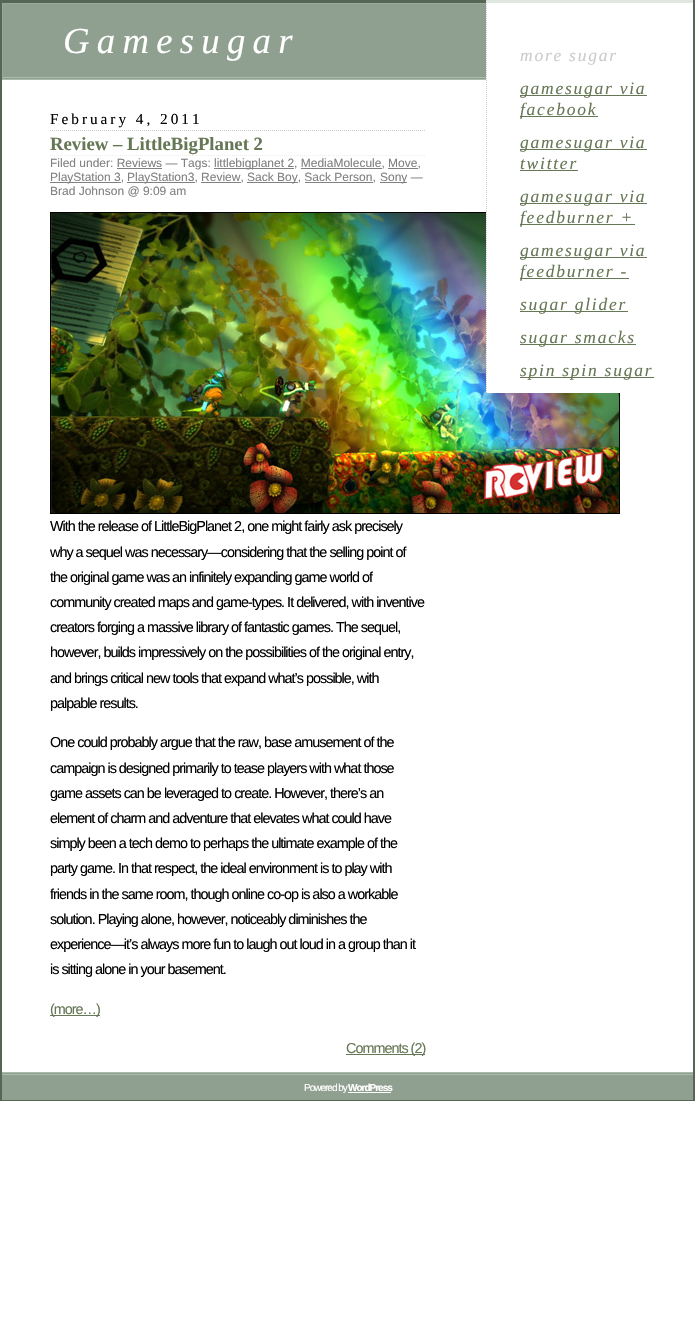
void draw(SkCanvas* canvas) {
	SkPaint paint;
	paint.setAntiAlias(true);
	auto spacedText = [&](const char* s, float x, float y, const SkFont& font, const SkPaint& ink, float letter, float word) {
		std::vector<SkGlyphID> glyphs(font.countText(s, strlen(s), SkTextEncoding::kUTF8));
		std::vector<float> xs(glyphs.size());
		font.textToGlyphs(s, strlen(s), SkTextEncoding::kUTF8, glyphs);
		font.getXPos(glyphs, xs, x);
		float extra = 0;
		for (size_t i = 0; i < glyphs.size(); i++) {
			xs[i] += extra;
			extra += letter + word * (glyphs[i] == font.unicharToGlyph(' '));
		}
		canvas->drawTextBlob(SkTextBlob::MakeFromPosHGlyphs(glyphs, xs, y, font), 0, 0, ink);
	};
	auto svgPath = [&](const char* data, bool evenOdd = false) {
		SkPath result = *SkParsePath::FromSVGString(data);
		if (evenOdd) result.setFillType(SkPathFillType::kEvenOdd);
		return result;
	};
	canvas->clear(0xffffffff);
	paint.setColor(0xff556655);
	canvas->drawRect(SkRect::MakeXYWH(0, 0, 486, 3), paint);
	canvas->drawRect(SkRect::MakeXYWH(693, 0, 2, 1101), paint);
	canvas->drawRect(SkRect::MakeXYWH(0, 1100, 695, 1), paint);
	canvas->drawRect(SkRect::MakeXYWH(0, 0, 2, 1101), paint);
	paint.setColor(0xff90a090);
	canvas->drawRect(SkRect::MakeXYWH(2, 4, 484, 75), paint);
	paint.setColor(0xff99aa99);
	canvas->drawRect(SkRect::MakeXYWH(2, 3, 484, 1), paint);
	paint.setColor(0xffaabbaa);
	canvas->drawRect(SkRect::MakeXYWH(2, 77, 484, 1), paint);
	canvas->drawRect(SkRect::MakeXYWH(2, 79, 484, 1), paint);
	paint.setColor(0xff99aa99);
	canvas->drawPath(svgPath("M2 80V3L3 4V77Z"), paint);
	SkFont f1(fontMgr->matchFamilyStyle("Liberation Serif", SkFontStyle::Italic()), 36.75);
	f1.setSubpixel(true);
	paint.setColor(0xffffffff);
	spacedText("Gamesugar", 63, 53, f1, paint, 7.25, 0);
	paint.setStroke(true);
	paint.setStrokeWidth(1);
	paint.setColor(0xffcccccc);
	paint.setPathEffect(SkDashPathEffect::Make({{1, 1}}, 0));
	canvas->drawPath(svgPath("M50 130.5H425"), paint);
	paint.setPathEffect(nullptr);
	SkFont f2(fontMgr->matchFamilyStyle("Liberation Serif", SkFontStyle::Normal()), 15.25);
	f2.setSubpixel(true);
	paint.setStroke(false);
	paint.setColor(0xff000000);
	spacedText("February 4, 2011", 50, 124, f2, paint, 3, 0);
	paint.setStroke(true);
	paint.setColor(0xffeeeeee);
	paint.setPathEffect(SkDashPathEffect::Make({{1, 1}}, 0));
	canvas->drawPath(svgPath("M50 155.5H425"), paint);
	paint.setPathEffect(nullptr);
	SkFont f3(fontMgr->matchFamilyStyle("Liberation Serif", SkFontStyle::Bold()), 18.75);
	f3.setSubpixel(true);
	paint.setStroke(false);
	paint.setColor(0xff667755);
	canvas->drawString("Review – LittleBigPlanet 2", 50, 150, f3, paint);
	SkFont f4(fontMgr->matchFamilyStyle("Liberation Sans", SkFontStyle::Normal()), 12);
	f4.setSubpixel(true);
	paint.setColor(0xff808080);
	canvas->drawString("Filed under: Reviews — Tags:", 50, 167, f4, paint);
	canvas->drawRect(SkRect::MakeXYWH(214, 168, 80, 1), paint);
	canvas->drawString("littlebigplanet 2, MediaMolecule, Move,", 214, 167, f4, paint);
	canvas->drawRect(SkRect::MakeXYWH(117, 168, 45, 1), paint);
	canvas->drawRect(SkRect::MakeXYWH(301, 168, 81, 1), paint);
	canvas->drawRect(SkRect::MakeXYWH(388, 168, 30, 1), paint);
	canvas->drawRect(SkRect::MakeXYWH(50, 182, 71, 1), paint);
	canvas->drawString("PlayStation 3,", 50, 181, f4, paint);
	canvas->drawRect(SkRect::MakeXYWH(127, 182, 68, 1), paint);
	canvas->drawString("PlayStation3, Review,", 127, 181, f4, paint);
	canvas->drawRect(SkRect::MakeXYWH(247, 182, 51, 1), paint);
	canvas->drawString("Sack Boy, Sack Person,", 247, 181, f4, paint);
	canvas->drawRect(SkRect::MakeXYWH(380, 182, 27, 1), paint);
	canvas->drawString("Sony —", 380, 181, f4, paint);
	canvas->drawRect(SkRect::MakeXYWH(201, 182, 40, 1), paint);
	canvas->drawRect(SkRect::MakeXYWH(305, 182, 68, 1), paint);
	canvas->drawString("Brad Johnson @ 9:09 am", 50, 195, f4, paint);
	paint.setStroke(true);
	paint.setColor(0xff000000);
	canvas->drawRect(SkRect::MakeXYWH(50.5, 212.5, 569, 301), paint);
	canvas->drawImageRect(SkImages::DeferredFromEncodedData(SkData::MakeFromFileName("img1.png")), SkRect::MakeXYWH(51, 213, 568, 300), SkSamplingOptions());
	SkFont f5(fontMgr->matchFamilyStyle("Liberation Sans", SkFontStyle::Normal()), 14.4);
	f5.setSubpixel(true);
	paint.setStroke(false);
	spacedText("With the release of LittleBigPlanet 2, one might fairly ask precisely", 50, 531, f5, paint, -1, 0);
	spacedText("why a sequel was necessary—considering that the selling point of", 50, 557, f5, paint, -1, 0);
	spacedText("the original game was an infinitely expanding game world of", 50, 582, f5, paint, -1, 0);
	spacedText("community created maps and game-types. It delivered, with inventive", 50, 607, f5, paint, -1, 0);
	spacedText("creators forging a massive library of fantastic games. The sequel,", 50, 632, f5, paint, -1, 0);
	spacedText("however, builds impressively on the possibilities of the original entry,", 50, 657, f5, paint, -1, 0);
	spacedText("and brings critical new tools that expand what’s possible, with", 50, 683, f5, paint, -1, 0);
	spacedText("palpable results.", 50, 708, f5, paint, -1, 0);
	spacedText("One could probably argue that the raw, base amusement of the", 50, 747, f5, paint, -1, 0);
	spacedText("campaign is designed primarily to tease players with what those", 50, 773, f5, paint, -1, 0);
	spacedText("game assets can be leveraged to create. However, there’s an", 50, 798, f5, paint, -1, 0);
	spacedText("element of charm and adventure that elevates what could have", 50, 823, f5, paint, -1, 0);
	spacedText("simply been a tech demo to perhaps the ultimate example of the", 50, 848, f5, paint, -1, 0);
	spacedText("party game. In that respect, the ideal environment is to play with", 50, 873, f5, paint, -1, 0);
	spacedText("friends in the same room, though online co-op is also a workable", 50, 899, f5, paint, -1, 0);
	spacedText("solution. Playing alone, however, noticeably diminishes the", 50, 924, f5, paint, -1, 0);
	spacedText("experience—it’s always more fun to laugh out loud in a group than it", 50, 949, f5, paint, -1, 0);
	spacedText("is sitting alone in your basement.", 50, 974, f5, paint, -1, 0);
	paint.setColor(0xff667755);
	canvas->drawRect(SkRect::MakeXYWH(50, 1015, 50, 1), paint);
	spacedText("(more…)", 50, 1014, f5, paint, -1, 0);
	canvas->drawRect(SkRect::MakeXYWH(346, 1054, 79, 1), paint);
	spacedText("Comments (2)", 346, 1053, f5, paint, -1, 0);
	paint.setColor(0xffffffff);
	canvas->drawRect(SkRect::MakeXYWH(486, 212, 134, 181), paint);
	paint.setColor(0xffe0e6e0);
	canvas->drawPath(svgPath("M486 0H693V3H487Z"), paint);
	paint.setStroke(true);
	paint.setColor(0xffcccccc);
	paint.setPathEffect(SkDashPathEffect::Make({{1, 1}}, 0));
	canvas->drawPath(svgPath("M486.5 0V393"), paint);
	paint.setPathEffect(nullptr);
	SkFont f6(fontMgr->matchFamilyStyle("Liberation Serif", SkFontStyle::Italic()), 17.5);
	f6.setSubpixel(true);
	paint.setStroke(false);
	spacedText("more sugar", 520, 61, f6, paint, 1.75, 0);
	paint.setColor(0xff667755);
	canvas->drawRect(SkRect::MakeXYWH(520, 95, 127, 1), paint);
	spacedText("gamesugar via", 520, 94, f6, paint, 1.75, 0);
	canvas->drawRect(SkRect::MakeXYWH(520, 116, 78, 1), paint);
	spacedText("facebook", 520, 115, f6, paint, 1.75, 0);
	canvas->drawRect(SkRect::MakeXYWH(520, 149, 127, 1), paint);
	spacedText("gamesugar via", 520, 148, f6, paint, 1.75, 0);
	spacedText("twitter", 520, 169, f6, paint, 1.75, 0);
	canvas->drawRect(SkRect::MakeXYWH(520, 170, 58, 1), paint);
	canvas->drawRect(SkRect::MakeXYWH(520, 203, 127, 1), paint);
	spacedText("gamesugar via", 520, 202, f6, paint, 1.75, 0);
	canvas->drawRect(SkRect::MakeXYWH(520, 224, 115, 1), paint);
	spacedText("feedburner +", 520, 223, f6, paint, 1.75, 0);
	canvas->drawRect(SkRect::MakeXYWH(520, 257, 127, 1), paint);
	spacedText("gamesugar via", 520, 256, f6, paint, 1.75, 0);
	canvas->drawRect(SkRect::MakeXYWH(520, 278, 109, 1), paint);
	spacedText("feedburner -", 520, 277, f6, paint, 1.75, 0);
	canvas->drawRect(SkRect::MakeXYWH(520, 311, 108, 1), paint);
	spacedText("sugar glider", 520, 310, f6, paint, 1.75, 0);
	canvas->drawRect(SkRect::MakeXYWH(520, 344, 116, 1), paint);
	spacedText("sugar smacks", 520, 343, f6, paint, 1.75, 0);
	canvas->drawRect(SkRect::MakeXYWH(520, 377, 134, 1), paint);
	spacedText("spin spin sugar", 520, 376, f6, paint, 1.75, 0);
	paint.setColor(0xff90a090);
	canvas->drawRect(SkRect::MakeXYWH(2, 1073, 691, 27), paint);
	paint.setColor(0xffaabbaa);
	canvas->drawRect(SkRect::MakeXYWH(2, 1072, 691, 1), paint);
	canvas->drawRect(SkRect::MakeXYWH(2, 1074, 691, 1), paint);
	SkFont f7(fontMgr->matchFamilyStyle("Liberation Sans", SkFontStyle::Normal()), 10);
	f7.setSubpixel(true);
	paint.setColor(0xffffffff);
	spacedText("Powered by", 304, 1091, f7, paint, -1, 0);
	canvas->drawRect(SkRect::MakeXYWH(348, 1092, 43, 1), paint);
	SkFont f8(fontMgr->matchFamilyStyle("Liberation Sans", SkFontStyle::Bold()), 10);
	f8.setSubpixel(true);
	spacedText("WordPress", 348, 1091, f8, paint, -1, 0);
}
